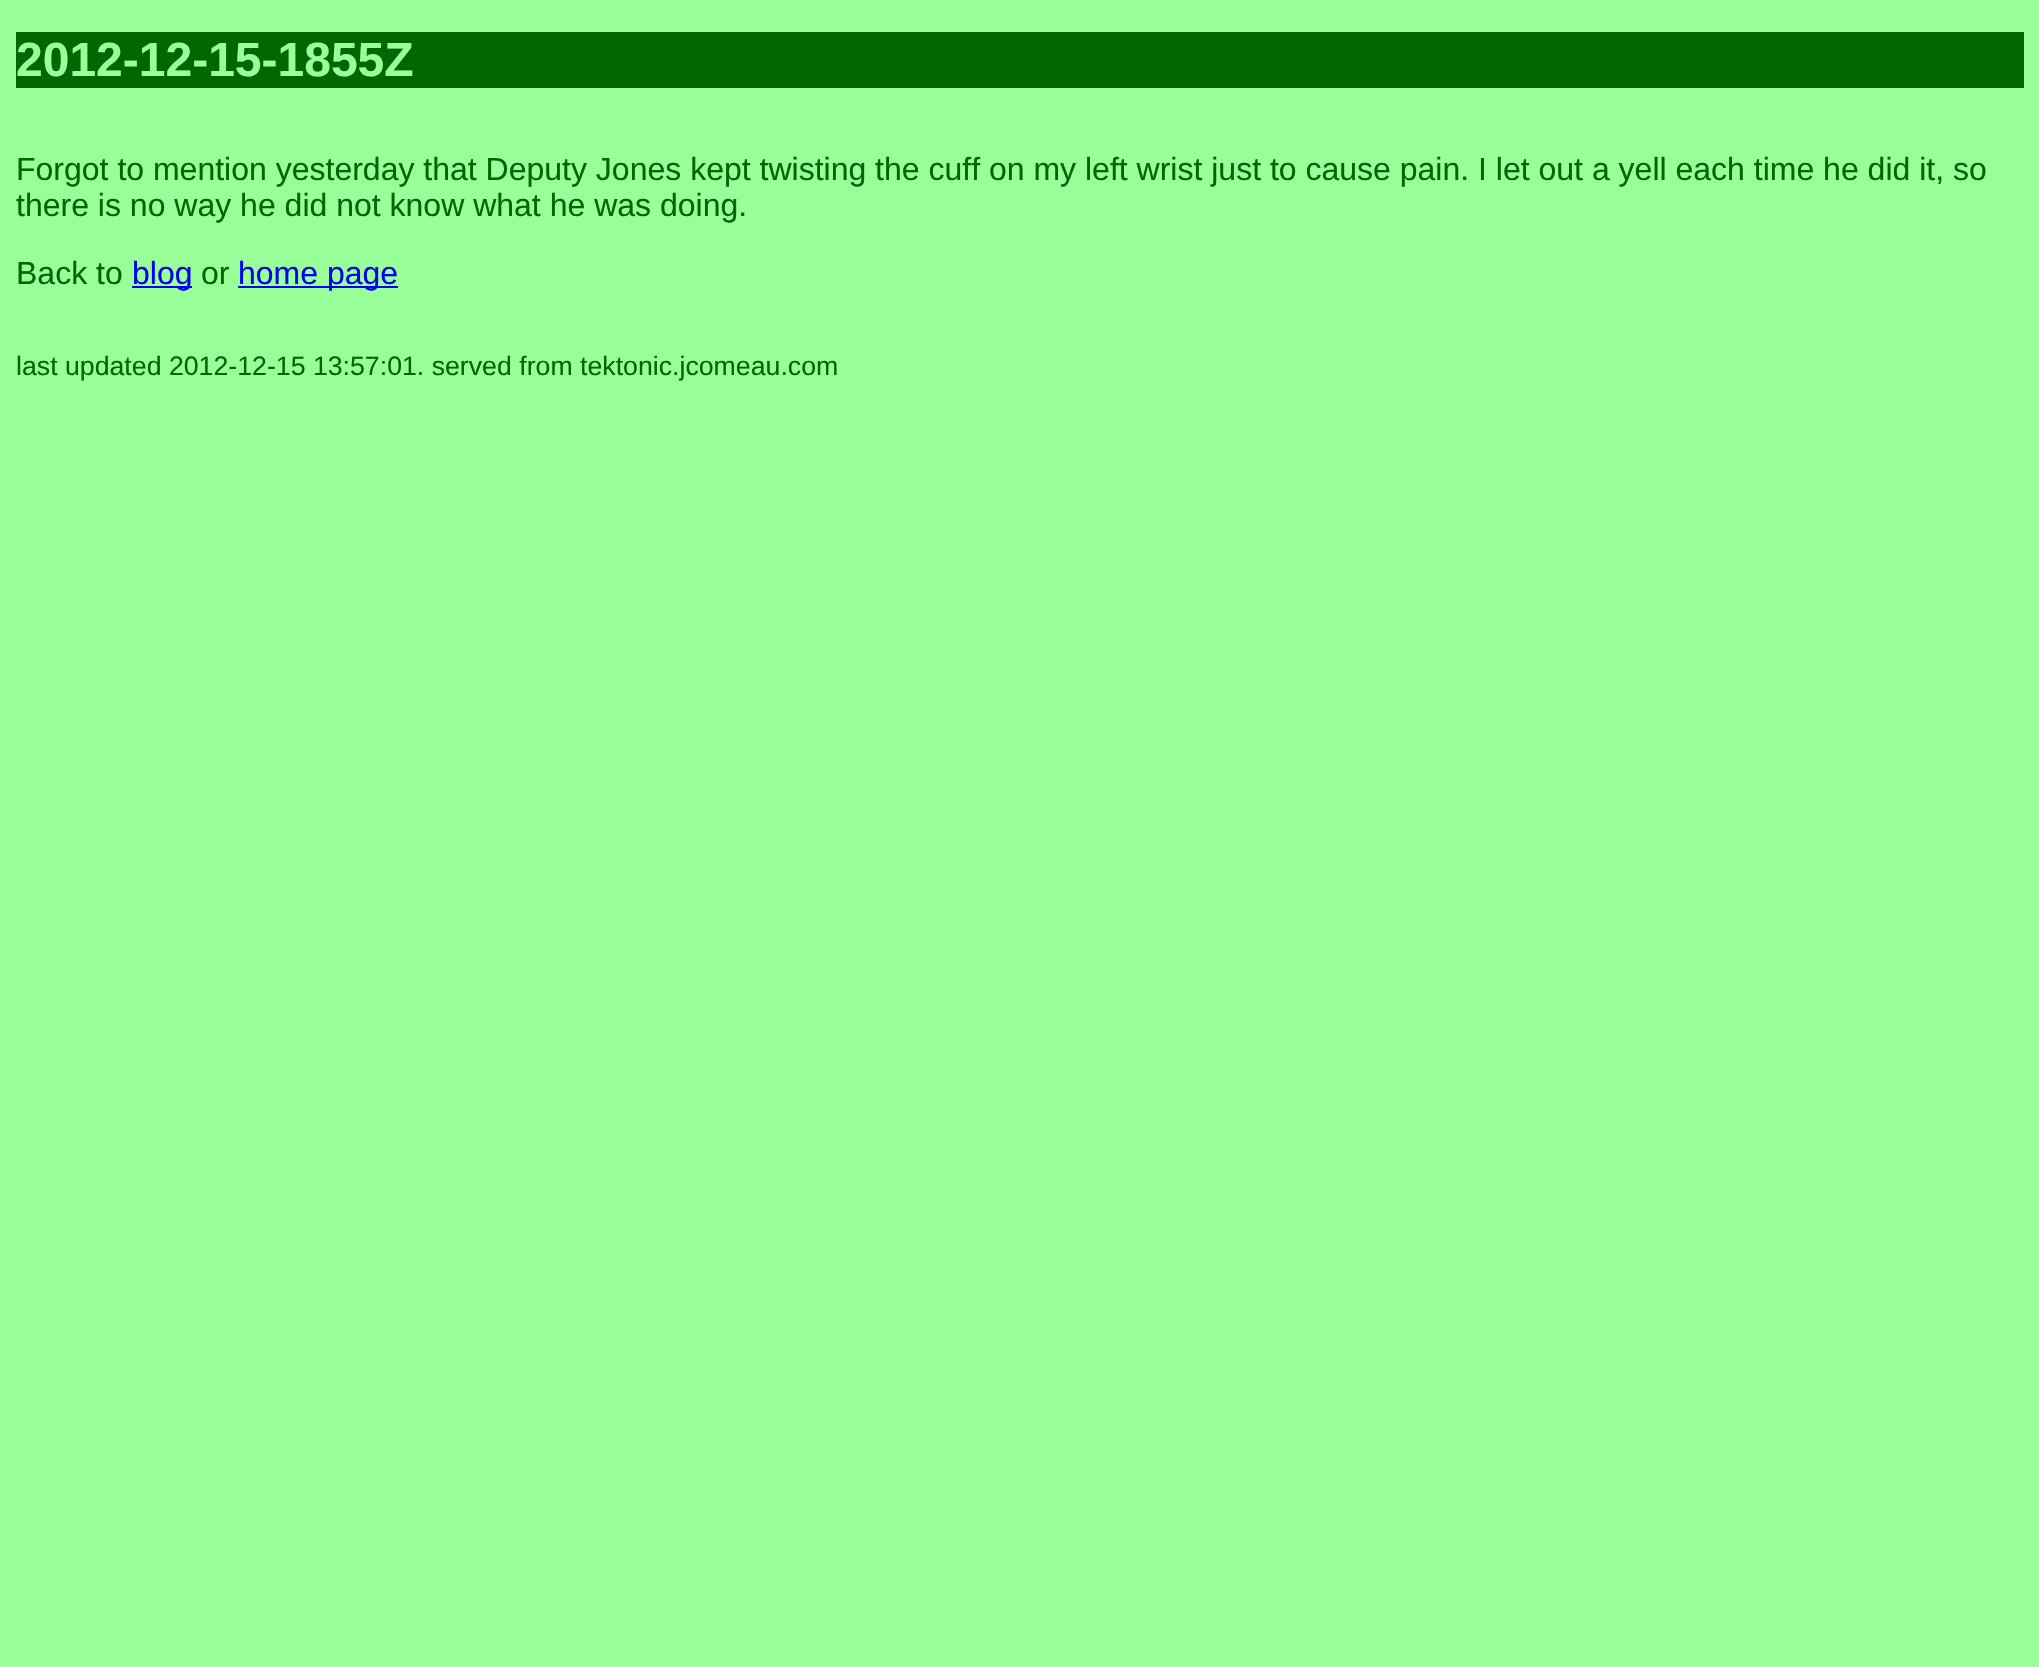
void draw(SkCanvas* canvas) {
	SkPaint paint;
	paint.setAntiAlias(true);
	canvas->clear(0xff99ff99);
	paint.setColor(0xff006600);
	canvas->drawRect(SkRect::MakeXYWH(16, 32, 2008, 56), paint);
	SkFont f1(fontMgr->matchFamilyStyle("Liberation Sans", SkFontStyle::Bold()), 48);
	f1.setSubpixel(true);
	paint.setColor(0xff99ff99);
	canvas->drawString("2012-12-15-1855Z", 16, 76, f1, paint);
	SkFont f2(fontMgr->matchFamilyStyle("Liberation Sans", SkFontStyle::Normal()), 32);
	f2.setSubpixel(true);
	paint.setColor(0xff006600);
	canvas->drawString("Forgot to mention yesterday that Deputy Jones kept twisting the cuff on my left wrist just to cause pain. I let out a yell each time he did it, so", 16, 180, f2, paint);
	canvas->drawString("there is no way he did not know what he was doing.", 16, 216, f2, paint);
	canvas->drawString("Back to", 16, 284, f2, paint);
	paint.setColor(0xff0000ee);
	canvas->drawRect(SkRect::MakeXYWH(132, 286, 60, 2), paint);
	canvas->drawString("blog", 132, 284, f2, paint);
	paint.setColor(0xff006600);
	canvas->drawString("or", 201, 284, f2, paint);
	paint.setColor(0xff0000ee);
	canvas->drawRect(SkRect::MakeXYWH(238, 286, 160, 2), paint);
	canvas->drawString("home page", 238, 284, f2, paint);
	SkFont f3(fontMgr->matchFamilyStyle("Liberation Sans", SkFontStyle::Normal()), 26.7);
	f3.setSubpixel(true);
	paint.setColor(0xff006600);
	canvas->drawString("last updated 2012-12-15 13:57:01. served from tektonic.jcomeau.com", 16, 375, f3, paint);
}
